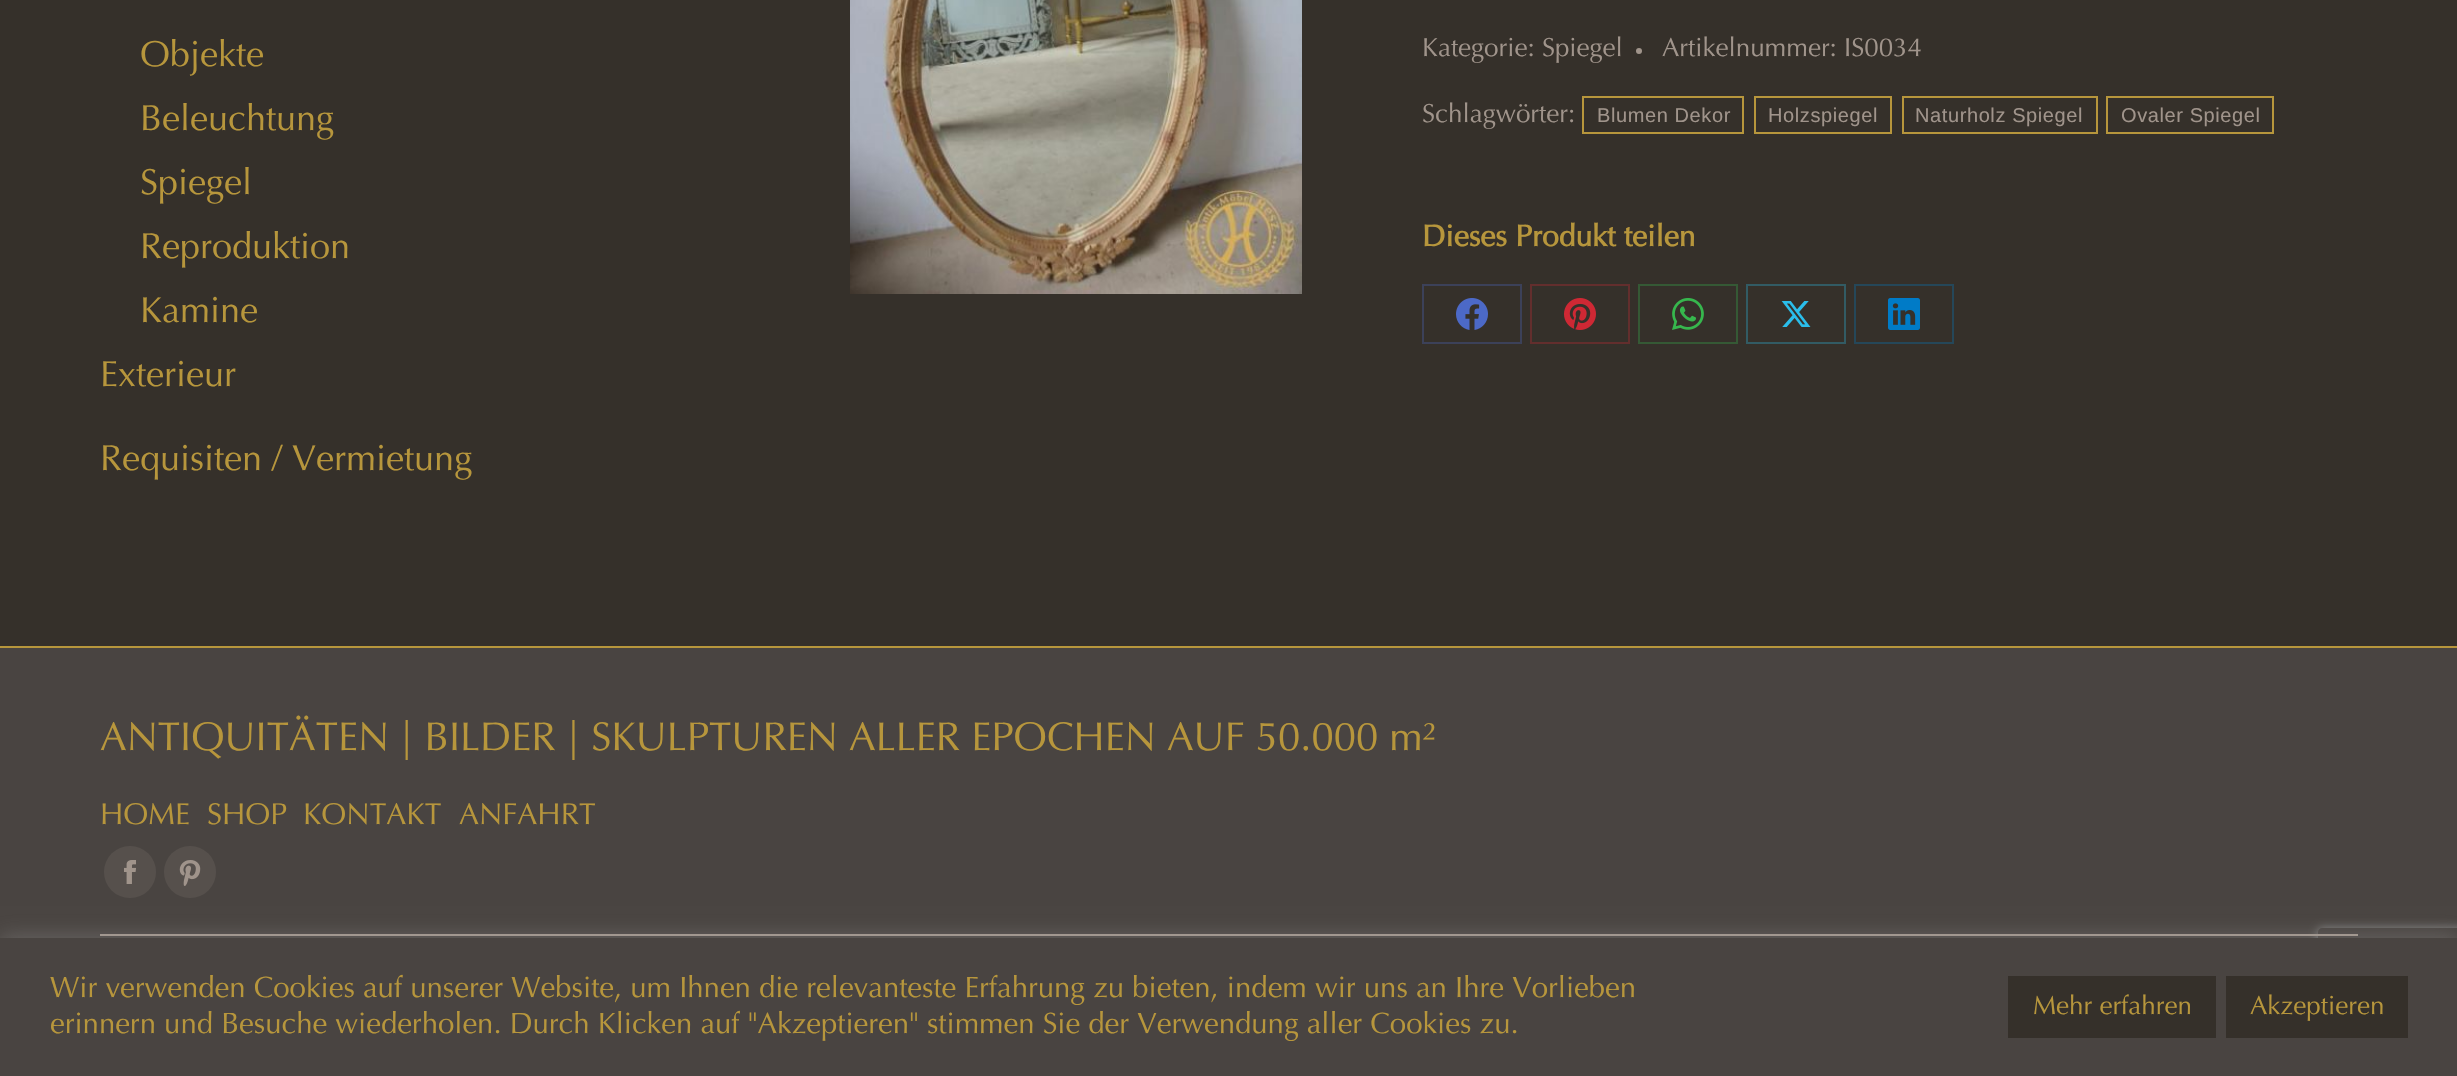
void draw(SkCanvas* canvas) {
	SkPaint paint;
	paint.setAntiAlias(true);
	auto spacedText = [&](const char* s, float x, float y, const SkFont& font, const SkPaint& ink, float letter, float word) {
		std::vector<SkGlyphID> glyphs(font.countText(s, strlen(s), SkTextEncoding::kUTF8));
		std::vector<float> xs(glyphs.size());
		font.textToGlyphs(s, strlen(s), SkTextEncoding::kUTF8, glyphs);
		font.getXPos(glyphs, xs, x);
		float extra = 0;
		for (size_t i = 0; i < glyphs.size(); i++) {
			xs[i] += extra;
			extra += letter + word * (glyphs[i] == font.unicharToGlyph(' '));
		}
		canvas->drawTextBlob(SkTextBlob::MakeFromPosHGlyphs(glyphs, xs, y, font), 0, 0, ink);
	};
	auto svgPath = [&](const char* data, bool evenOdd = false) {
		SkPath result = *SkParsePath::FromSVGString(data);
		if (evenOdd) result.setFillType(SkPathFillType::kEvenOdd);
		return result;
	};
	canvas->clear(0xff35302a);
	SkFont f1(fontMgr->matchFamilyStyle("Optima", SkFontStyle(500, SkFontStyle::kNormal_Width, SkFontStyle::kUpright_Slant)), 36);
	f1.setSubpixel(true);
	paint.setColor(0xffb7963c);
	canvas->drawString("Objekte", 140, 66, f1, paint);
	canvas->drawString("Beleuchtung", 140, 130, f1, paint);
	canvas->drawString("Spiegel", 140, 194, f1, paint);
	canvas->drawString("Reproduktion", 140, 258, f1, paint);
	canvas->drawString("Kamine", 140, 322, f1, paint);
	canvas->drawString("Exterieur", 100, 386, f1, paint);
	canvas->drawString("Requisiten / Vermietung", 100, 470, f1, paint);
	canvas->drawImageRect(SkImages::DeferredFromEncodedData(SkData::MakeFromFileName("img1.png")), SkRect::MakeXYWH(850, 0, 452, 294), SkSamplingOptions());
	SkFont f2(fontMgr->matchFamilyStyle("Optima", SkFontStyle(500, SkFontStyle::kNormal_Width, SkFontStyle::kUpright_Slant)), 26);
	f2.setSubpixel(true);
	paint.setColor(0xffa0948b);
	canvas->drawString("Kategorie: Spiegel", 1422, 56, f2, paint);
	canvas->drawCircle(1639, 51, 3, paint);
	canvas->drawString("Artikelnummer: IS0034", 1662, 56, f2, paint);
	canvas->drawString("Schlagwörter:", 1422, 122, f2, paint);
	paint.setStroke(true);
	paint.setStrokeWidth(2);
	paint.setColor(0xffb7963c);
	canvas->drawRect(SkRect::MakeXYWH(1583, 97, 160, 36), paint);
	SkFont f3(fontMgr->matchFamilyStyle("Liberation Sans", SkFontStyle::Normal()), 20);
	f3.setSubpixel(true);
	paint.setStroke(false);
	paint.setColor(0xffa0948b);
	spacedText("Blumen Dekor", 1597, 122, f3, paint, 0.6, 0);
	paint.setStroke(true);
	paint.setColor(0xffb7963c);
	canvas->drawRect(SkRect::MakeXYWH(1755, 97, 136, 36), paint);
	paint.setStroke(false);
	paint.setColor(0xffa0948b);
	spacedText("Holzspiegel", 1768, 122, f3, paint, 0.6, 0);
	paint.setStroke(true);
	paint.setColor(0xffb7963c);
	canvas->drawRect(SkRect::MakeXYWH(1903, 97, 194, 36), paint);
	paint.setStroke(false);
	paint.setColor(0xffa0948b);
	spacedText("Naturholz Spiegel", 1915, 122, f3, paint, 0.6, 0);
	paint.setStroke(true);
	paint.setColor(0xffb7963c);
	canvas->drawRect(SkRect::MakeXYWH(2107, 97, 166, 36), paint);
	paint.setStroke(false);
	paint.setColor(0xffa0948b);
	spacedText("Ovaler Spiegel", 2121, 122, f3, paint, 0.6, 0);
	SkFont f4(fontMgr->matchFamilyStyle("Optima", SkFontStyle::Bold()), 30);
	f4.setSubpixel(true);
	paint.setColor(0xffb7963c);
	canvas->drawString("Dieses Produkt teilen", 1422, 246, f4, paint);
	paint.setStroke(true);
	paint.setColor(0xff3c4159);
	canvas->drawRect(SkRect::MakeXYWH(1423, 285, 98, 58), paint);
	canvas->drawImageRect(SkImages::DeferredFromEncodedData(SkData::MakeFromFileName("img2.png")), SkRect::MakeXYWH(1456, 298, 32, 32), SkSamplingOptions());
	paint.setColor(0xff632e2d);
	canvas->drawRect(SkRect::MakeXYWH(1531, 285, 98, 58), paint);
	canvas->drawImageRect(SkImages::DeferredFromEncodedData(SkData::MakeFromFileName("img3.png")), SkRect::MakeXYWH(1564, 298, 32, 32), SkSamplingOptions());
	paint.setColor(0xff355935);
	canvas->drawRect(SkRect::MakeXYWH(1639, 285, 98, 58), paint);
	canvas->drawImageRect(SkImages::DeferredFromEncodedData(SkData::MakeFromFileName("img4.png")), SkRect::MakeXYWH(1672, 298, 32, 32), SkSamplingOptions());
	paint.setColor(0xff325b64);
	canvas->drawRect(SkRect::MakeXYWH(1747, 285, 98, 58), paint);
	canvas->drawImageRect(SkImages::DeferredFromEncodedData(SkData::MakeFromFileName("img5.png")), SkRect::MakeXYWH(1781, 301, 30, 26), SkSamplingOptions());
	paint.setColor(0xff254759);
	canvas->drawRect(SkRect::MakeXYWH(1855, 285, 98, 58), paint);
	canvas->drawImageRect(SkImages::DeferredFromEncodedData(SkData::MakeFromFileName("img6.png")), SkRect::MakeXYWH(1888, 298, 32, 32), SkSamplingOptions());
	paint.setStroke(false);
	paint.setColor(0xff494441);
	canvas->drawRect(SkRect::MakeXYWH(0, 648, 2457, 290), paint);
	paint.setColor(0xffb7963c);
	canvas->drawRect(SkRect::MakeXYWH(0, 646, 2457, 2), paint);
	SkFont f5(fontMgr->matchFamilyStyle("Optima", SkFontStyle(500, SkFontStyle::kNormal_Width, SkFontStyle::kUpright_Slant)), 40);
	f5.setSubpixel(true);
	canvas->drawString("ANTIQUITÄTEN | BILDER | SKULPTUREN ALLER EPOCHEN AUF 50.000 m²", 100, 750, f5, paint);
	SkFont f6(fontMgr->matchFamilyStyle("Optima", SkFontStyle(500, SkFontStyle::kNormal_Width, SkFontStyle::kUpright_Slant)), 30);
	f6.setSubpixel(true);
	canvas->drawString("HOME", 100, 824, f6, paint);
	canvas->drawString("SHOP", 207, 824, f6, paint);
	canvas->drawString("KONTAKT", 303, 824, f6, paint);
	canvas->drawString("ANFAHRT", 459, 824, f6, paint);
	paint.setColor(0xff56504c);
	canvas->drawCircle(130, 872, 26, paint);
	canvas->drawImageRect(SkImages::DeferredFromEncodedData(SkData::MakeFromFileName("img7.png")), SkRect::MakeXYWH(124, 860, 12, 24), SkSamplingOptions());
	canvas->drawCircle(190, 872, 26, paint);
	canvas->drawImageRect(SkImages::DeferredFromEncodedData(SkData::MakeFromFileName("img8.png")), SkRect::MakeXYWH(179, 860, 22, 26), SkSamplingOptions());
	canvas->save();
	canvas->clipPath(svgPath("M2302 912H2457V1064H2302ZM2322 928H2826C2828 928 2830 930 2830 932V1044C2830 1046 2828 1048 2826 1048H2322C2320 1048 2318 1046 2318 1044V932C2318 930 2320 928 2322 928Z", true), true);
	paint.setColor(0xff808080);
	paint.setMaskFilter(SkMaskFilter::MakeBlur(kNormal_SkBlurStyle, 5));
	canvas->drawRoundRect(SkRect::MakeXYWH(2318, 928, 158, 120), 4, 4, paint);
	paint.setMaskFilter(nullptr);
	canvas->restore();
	paint.setColor(0xffa0948b);
	canvas->drawRect(SkRect::MakeXYWH(100, 934, 2258, 2), paint);
	paint.setColor(0x4dacabab);
	paint.setMaskFilter(SkMaskFilter::MakeBlur(kNormal_SkBlurStyle, 10));
	canvas->drawRect(SkRect::MakeXYWH(0, 936, 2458, 138), paint);
	paint.setMaskFilter(nullptr);
	paint.setColor(0xff494441);
	canvas->drawRect(SkRect::MakeXYWH(0, 938, 2457, 138), paint);
	SkFont f7(fontMgr->matchFamilyStyle("Optima", SkFontStyle(500, SkFontStyle::kNormal_Width, SkFontStyle::kUpright_Slant)), 29.33);
	f7.setSubpixel(true);
	paint.setColor(0xffb7963c);
	canvas->drawString("Wir verwenden Cookies auf unserer Website, um Ihnen die relevanteste Erfahrung zu bieten, indem wir uns an Ihre Vorlieben", 50, 997, f7, paint);
	canvas->drawString("erinnern und Besuche wiederholen. Durch Klicken auf \"Akzeptieren\" stimmen Sie der Verwendung aller Cookies zu.", 50, 1033, f7, paint);
	paint.setColor(0xff35302a);
	canvas->drawRect(SkRect::MakeXYWH(2008, 976, 208, 62), paint);
	paint.setColor(0xffb7963c);
	canvas->drawString("Mehr erfahren", 2033, 1014, f2, paint);
	paint.setColor(0xff35302a);
	canvas->drawRect(SkRect::MakeXYWH(2226, 976, 182, 62), paint);
	paint.setColor(0xffb7963c);
	canvas->drawString("Akzeptieren", 2250, 1014, f2, paint);
}
